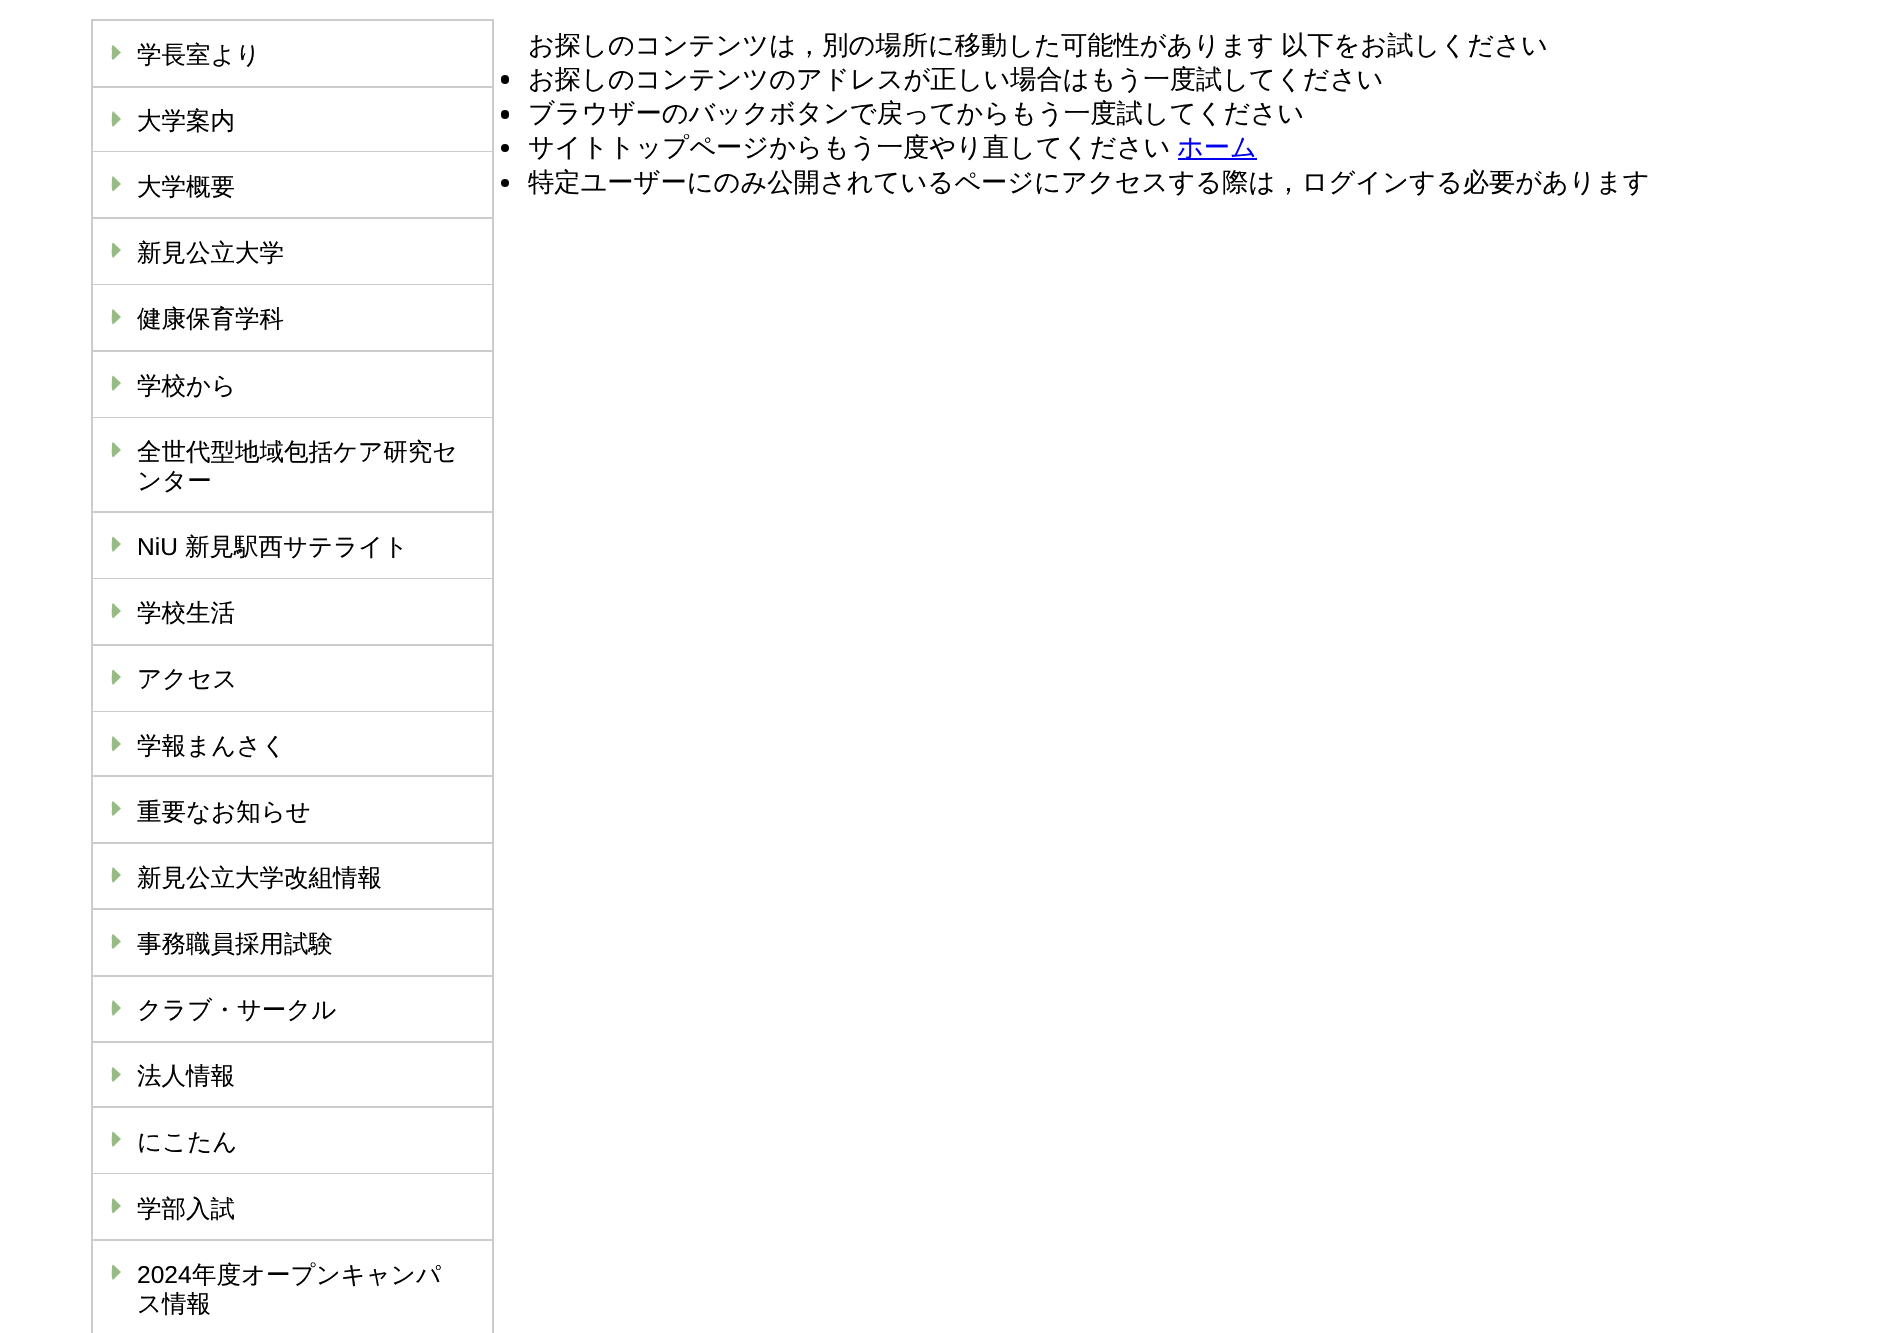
void draw(SkCanvas* canvas) {
	SkPaint paint;
	paint.setAntiAlias(true);
	auto spacedText = [&](const char* s, float x, float y, const SkFont& font, const SkPaint& ink, float letter, float word) {
		std::vector<SkGlyphID> glyphs(font.countText(s, strlen(s), SkTextEncoding::kUTF8));
		std::vector<float> xs(glyphs.size());
		font.textToGlyphs(s, strlen(s), SkTextEncoding::kUTF8, glyphs);
		font.getXPos(glyphs, xs, x);
		float extra = 0;
		for (size_t i = 0; i < glyphs.size(); i++) {
			xs[i] += extra;
			extra += letter + word * (glyphs[i] == font.unicharToGlyph(' '));
		}
		canvas->drawTextBlob(SkTextBlob::MakeFromPosHGlyphs(glyphs, xs, y, font), 0, 0, ink);
	};
	auto svgPath = [&](const char* data, bool evenOdd = false) {
		SkPath result = *SkParsePath::FromSVGString(data);
		if (evenOdd) result.setFillType(SkPathFillType::kEvenOdd);
		return result;
	};
	canvas->clear(0xffffffff);
	paint.setStroke(true);
	paint.setStrokeWidth(2);
	paint.setColor(0xffcccccc);
	canvas->drawRect(SkRect::MakeXYWH(92, 20, 401, 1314), paint);
	paint.setStroke(false);
	paint.setColor(0xff97bb85);
	canvas->drawPath(svgPath("M113 45L121 52.5L113 60C111 58.5 112 54.5 112 52.5C112 50.5 111 46.5 113 45Z"), paint);
	SkFont f1(fontMgr->matchFamilyStyle("WenQuanYi Zen Hei", SkFontStyle(500, SkFontStyle::kNormal_Width, SkFontStyle::kUpright_Slant)), 24.5);
	f1.setSubpixel(true);
	paint.setColor(0xff000000);
	canvas->drawString("学長室より", 137, 63, f1, paint);
	paint.setColor(0xffcccccc);
	canvas->drawRect(SkRect::MakeXYWH(93, 86, 399, 2), paint);
	paint.setColor(0xff97bb85);
	canvas->drawPath(svgPath("M112 114C112 117 111 124.5 113 127L121 119L113 111C112.5 112 112 113 112 114Z"), paint);
	paint.setColor(0xff000000);
	canvas->drawString("大学案内", 137, 129, f1, paint);
	paint.setColor(0xffcccccc);
	canvas->drawRect(SkRect::MakeXYWH(93, 151, 399, 1), paint);
	paint.setColor(0xff97bb85);
	canvas->drawPath(svgPath("M112 178.5C112 181 111 189.5 113 191.5L121 184L113 176C112.5 176.5 112 177.5 112 178.5Z"), paint);
	paint.setColor(0xff000000);
	canvas->drawString("大学概要", 137, 195, f1, paint);
	paint.setColor(0xffcccccc);
	canvas->drawRect(SkRect::MakeXYWH(93, 217, 399, 2), paint);
	paint.setColor(0xff97bb85);
	canvas->drawPath(svgPath("M112 245C112 247.5 111 256 113 258L121 250L113 242.5C112.5 243 112 244 112 245Z"), paint);
	paint.setColor(0xff000000);
	canvas->drawString("新見公立大学", 137, 261, f1, paint);
	paint.setColor(0xffcccccc);
	canvas->drawRect(SkRect::MakeXYWH(93, 284, 399, 1), paint);
	paint.setColor(0xff97bb85);
	canvas->drawPath(svgPath("M112 311.5C112 314 111 322.5 113 324.5L121 317L113 309C112.5 309.5 112 310.5 112 311.5Z"), paint);
	paint.setColor(0xff000000);
	canvas->drawString("健康保育学科", 137, 327, f1, paint);
	paint.setColor(0xffcccccc);
	canvas->drawRect(SkRect::MakeXYWH(93, 350, 399, 2), paint);
	paint.setColor(0xff97bb85);
	canvas->drawPath(svgPath("M112 378C112 380.5 111 389 113 391L121 383L113 375.5C112.5 376 112 377 112 378Z"), paint);
	paint.setColor(0xff000000);
	canvas->drawString("学校から", 137, 394, f1, paint);
	paint.setColor(0xffcccccc);
	canvas->drawRect(SkRect::MakeXYWH(93, 417, 399, 1), paint);
	paint.setColor(0xff97bb85);
	canvas->drawPath(svgPath("M112 444.5C112 447 111 455.5 113 457.5L121 450L113 442C112.5 442.5 112 443.5 112 444.5Z"), paint);
	paint.setColor(0xff000000);
	canvas->drawString("全世代型地域包括ケア研究セ", 137, 460, f1, paint);
	canvas->drawString("ンター", 137, 489, f1, paint);
	paint.setColor(0xffcccccc);
	canvas->drawRect(SkRect::MakeXYWH(93, 511, 399, 2), paint);
	paint.setColor(0xff97bb85);
	canvas->drawPath(svgPath("M112 539C112 541.5 111 550 113 552L121 544L113 536.5C112.5 537 112 538 112 539Z"), paint);
	SkFont f2(fontMgr->matchFamilyStyle("Liberation Sans", SkFontStyle::Normal()), 24.5);
	f2.setSubpixel(true);
	paint.setColor(0xff000000);
	canvas->drawString("NiU", 137, 555, f2, paint);
	canvas->drawString("新見駅西サテライト", 185, 555, f1, paint);
	paint.setColor(0xffcccccc);
	canvas->drawRect(SkRect::MakeXYWH(93, 578, 399, 1), paint);
	paint.setColor(0xff97bb85);
	canvas->drawPath(svgPath("M112 605.5C112 608 111 616.5 113 618.5L121 611L113 603C112.5 603.5 112 604.5 112 605.5Z"), paint);
	paint.setColor(0xff000000);
	canvas->drawString("学校生活", 137, 621, f1, paint);
	paint.setColor(0xffcccccc);
	canvas->drawRect(SkRect::MakeXYWH(93, 644, 399, 2), paint);
	paint.setColor(0xff97bb85);
	canvas->drawPath(svgPath("M112 672C112 674.5 111 683 113 685L121 677L113 669.5C112.5 670 112 671 112 672Z"), paint);
	paint.setColor(0xff000000);
	canvas->drawString("アクセス", 137, 687, f1, paint);
	paint.setColor(0xffcccccc);
	canvas->drawRect(SkRect::MakeXYWH(93, 711, 399, 1), paint);
	paint.setColor(0xff97bb85);
	canvas->drawPath(svgPath("M112 738.5C112 741 111 749.5 113 751.5L121 744L113 736C112.5 736.5 112 737.5 112 738.5Z"), paint);
	paint.setColor(0xff000000);
	canvas->drawString("学報まんさく", 137, 754, f1, paint);
	paint.setColor(0xffcccccc);
	canvas->drawRect(SkRect::MakeXYWH(93, 775, 399, 2), paint);
	paint.setColor(0xff97bb85);
	canvas->drawPath(svgPath("M113 801L121 808.5L113 816C111 814.5 112 810.5 112 808.5C112 806.5 111 802.5 113 801Z"), paint);
	paint.setColor(0xff000000);
	canvas->drawString("重要なお知らせ", 137, 820, f1, paint);
	paint.setColor(0xffcccccc);
	canvas->drawRect(SkRect::MakeXYWH(93, 842, 399, 2), paint);
	paint.setColor(0xff97bb85);
	canvas->drawPath(svgPath("M112 870C112 873 111 880.5 113 883L121 875L113 867C112.5 868 112 869 112 870Z"), paint);
	paint.setColor(0xff000000);
	canvas->drawString("新見公立大学改組情報", 137, 886, f1, paint);
	paint.setColor(0xffcccccc);
	canvas->drawRect(SkRect::MakeXYWH(93, 908, 399, 2), paint);
	paint.setColor(0xff97bb85);
	canvas->drawPath(svgPath("M113 934L121 941.5L113 949C111 947.5 112 943.5 112 941.5C112 939.5 111 935.5 113 934Z"), paint);
	paint.setColor(0xff000000);
	canvas->drawString("事務職員採用試験", 137, 952, f1, paint);
	paint.setColor(0xffcccccc);
	canvas->drawRect(SkRect::MakeXYWH(93, 975, 399, 2), paint);
	paint.setColor(0xff97bb85);
	canvas->drawPath(svgPath("M112 1003C112 1006 111 1013.5 113 1016L121 1008L113 1000C112.5 1001 112 1002 112 1003Z"), paint);
	paint.setColor(0xff000000);
	canvas->drawString("クラブ・サークル", 137, 1018, f1, paint);
	paint.setColor(0xffcccccc);
	canvas->drawRect(SkRect::MakeXYWH(93, 1041, 399, 2), paint);
	paint.setColor(0xff97bb85);
	canvas->drawPath(svgPath("M113 1067L121 1074.5L113 1082C111 1080.5 112 1076.5 112 1074.5C112 1072.5 111 1068.5 113 1067Z"), paint);
	paint.setColor(0xff000000);
	canvas->drawString("法人情報", 137, 1084, f1, paint);
	paint.setColor(0xffcccccc);
	canvas->drawRect(SkRect::MakeXYWH(93, 1106, 399, 2), paint);
	paint.setColor(0xff97bb85);
	canvas->drawPath(svgPath("M112 1134C112 1136.5 111 1145 113 1147L121 1139L113 1131.5C112.5 1132 112 1133 112 1134Z"), paint);
	paint.setColor(0xff000000);
	canvas->drawString("にこたん", 137, 1150, f1, paint);
	paint.setColor(0xffcccccc);
	canvas->drawRect(SkRect::MakeXYWH(93, 1173, 399, 1), paint);
	paint.setColor(0xff97bb85);
	canvas->drawPath(svgPath("M112 1200.5C112 1203 111 1211.5 113 1213.5L121 1206L113 1198C112.5 1198.5 112 1199.5 112 1200.5Z"), paint);
	paint.setColor(0xff000000);
	canvas->drawString("学部入試", 137, 1217, f1, paint);
	paint.setColor(0xffcccccc);
	canvas->drawRect(SkRect::MakeXYWH(93, 1239, 399, 2), paint);
	paint.setColor(0xff97bb85);
	canvas->drawPath(svgPath("M112 1267C112 1269.5 111 1278 113 1280L121 1272L113 1264.5C112.5 1265 112 1266 112 1267Z"), paint);
	paint.setColor(0xff000000);
	canvas->drawString("2024", 137, 1283, f2, paint);
	canvas->drawString("年度オープンキャンパ", 192, 1283, f1, paint);
	canvas->drawString("ス情報", 137, 1312, f1, paint);
	SkFont f3(fontMgr->matchFamilyStyle("WenQuanYi Zen Hei", SkFontStyle(500, SkFontStyle::kNormal_Width, SkFontStyle::kUpright_Slant)), 26.25);
	f3.setSubpixel(true);
	spacedText("お探しのコンテンツは，別の場所に移動した可能性があります 以下をお試しください", 528, 54, f3, paint, 0, -1);
	canvas->drawRoundRect(SkRect::MakeXYWH(501, 75, 8, 9), 4, 4, paint);
	canvas->drawString("お探しのコンテンツのアドレスが正しい場合はもう一度試してください", 528, 88, f3, paint);
	canvas->drawRoundRect(SkRect::MakeXYWH(501, 110, 8, 9), 4, 4, paint);
	canvas->drawString("ブラウザーのバックボタンで戻ってからもう一度試してください", 528, 122, f3, paint);
	canvas->drawCircle(505, 148, 4, paint);
	canvas->drawString("サイトトップページからもう一度やり直してください", 528, 156, f3, paint);
	paint.setColor(0xff0000ee);
	canvas->drawRect(SkRect::MakeXYWH(1178, 158, 79, 2), paint);
	canvas->drawString("ホーム", 1177, 156, f3, paint);
	paint.setColor(0xff000000);
	canvas->drawCircle(505, 183, 4, paint);
	canvas->drawString("特定ユーザーにのみ公開されているページにアクセスする際は，ログインする必要があります", 528, 191, f3, paint);
}
